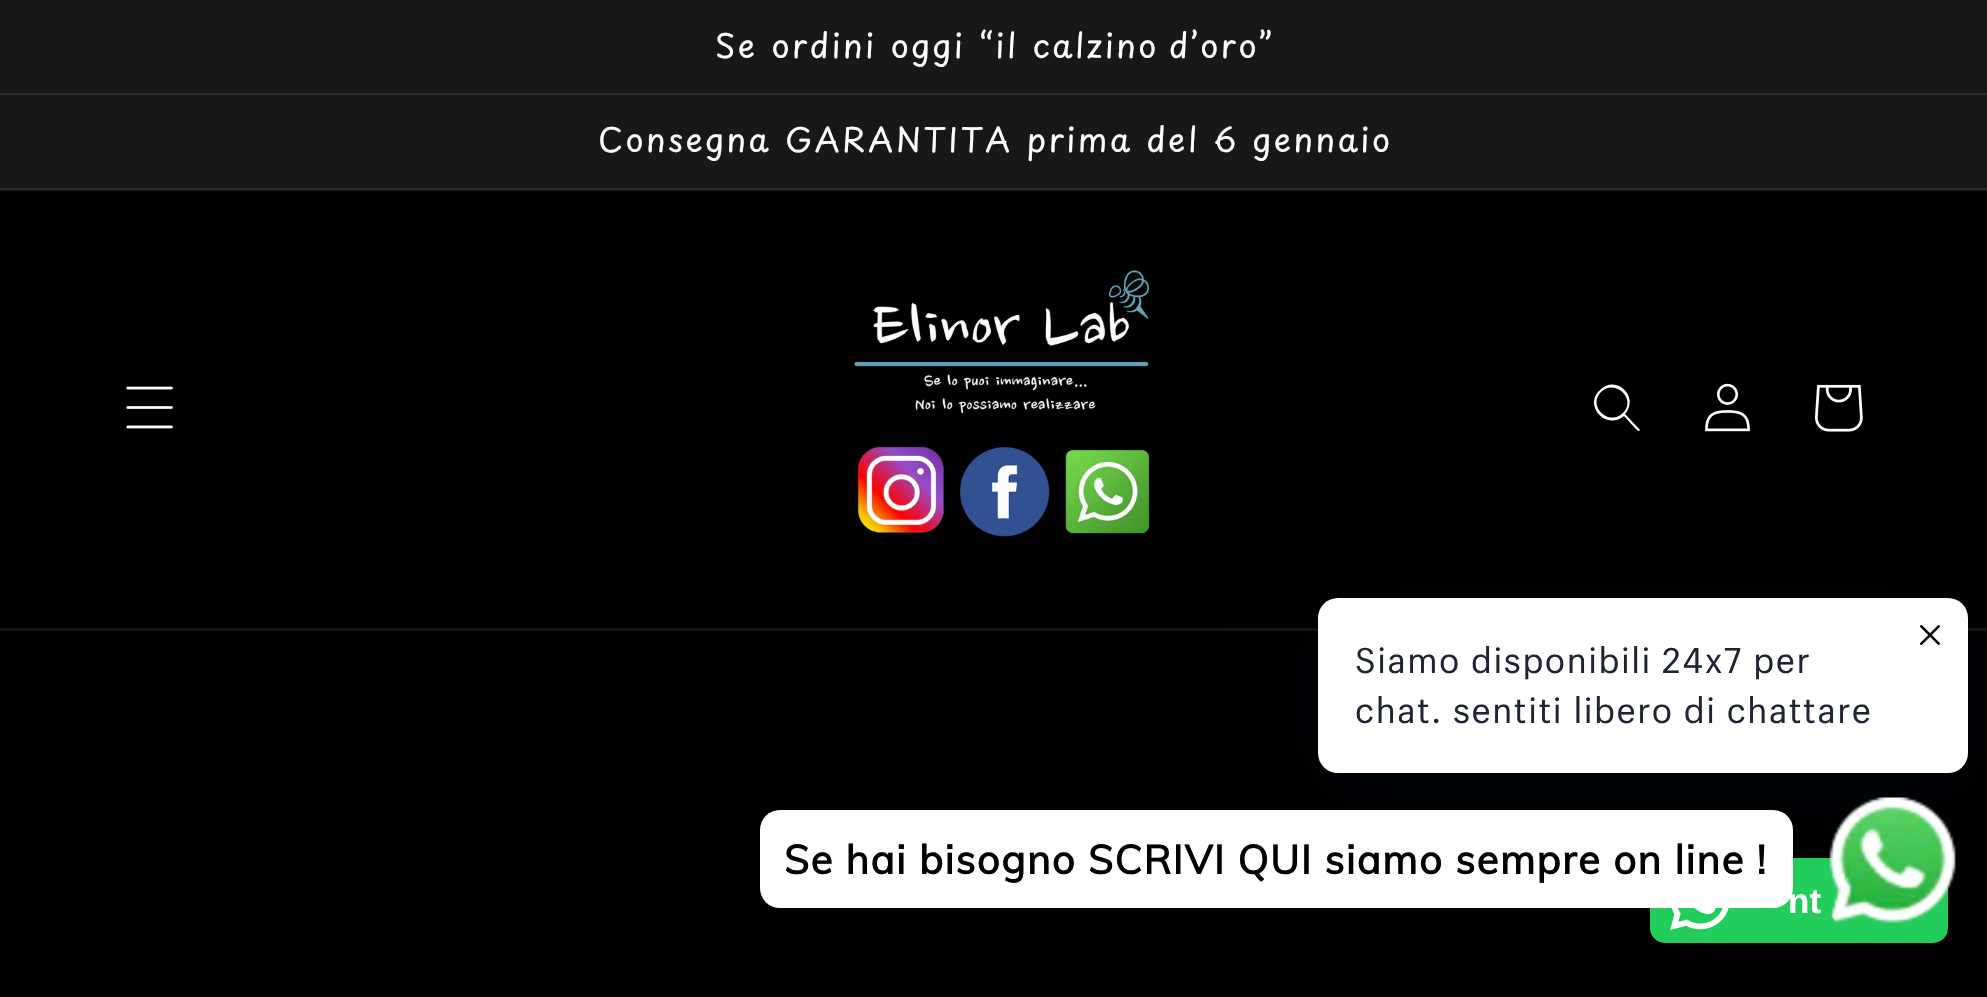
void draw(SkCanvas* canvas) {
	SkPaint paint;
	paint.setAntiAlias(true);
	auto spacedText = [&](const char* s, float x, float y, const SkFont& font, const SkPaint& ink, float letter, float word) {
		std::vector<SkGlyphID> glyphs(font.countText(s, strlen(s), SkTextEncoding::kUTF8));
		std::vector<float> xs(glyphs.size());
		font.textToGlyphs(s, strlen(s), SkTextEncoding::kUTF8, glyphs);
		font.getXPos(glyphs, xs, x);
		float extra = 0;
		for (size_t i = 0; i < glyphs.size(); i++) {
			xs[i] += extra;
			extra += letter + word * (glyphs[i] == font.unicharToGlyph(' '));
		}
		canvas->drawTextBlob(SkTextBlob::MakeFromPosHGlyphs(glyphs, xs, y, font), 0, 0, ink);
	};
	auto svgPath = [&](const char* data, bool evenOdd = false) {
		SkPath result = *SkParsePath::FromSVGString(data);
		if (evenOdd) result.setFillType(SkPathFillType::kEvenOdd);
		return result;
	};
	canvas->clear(0xff000000);
	paint.setColor(0xff141414);
	canvas->drawRect(SkRect::MakeXYWH(0, 190, 1987, 1), paint);
	{
		const SkColor colors[] = {0xffff0909, 0xfffe6292, 0xff191818};
		const float stops[] = {0, 0.02, 0.05};
		const SkPoint ends[] = {{80, 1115}, {1908, -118}};
		paint.setShader(SkGradientShader::MakeLinear(ends, colors, stops, 3, SkTileMode::kClamp));
		paint.setAlpha(255);
	}
	canvas->drawRect(SkRect::MakeXYWH(0, 0, 1987, 93), paint);
	{
		const SkColor colors[] = {0xffff1d1d, 0xfffe6f9b, 0xff2b2a2a};
		const float stops[] = {0, 0.02, 0.05};
		const SkPoint ends[] = {{80, 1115}, {1908, -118}};
		paint.setShader(SkGradientShader::MakeLinear(ends, colors, stops, 3, SkTileMode::kClamp));
		paint.setAlpha(255);
	}
	canvas->drawRect(SkRect::MakeXYWH(0, 93, 1987, 2), paint);
	SkFont f1(fontMgr->matchFamilyStyle("Playpen Sans", SkFontStyle::Normal()), 32.5);
	f1.setSubpixel(true);
	paint.setShader(nullptr);
	paint.setColor(0xffffffff);
	spacedText("Se ordini oggi “il calzino", 715, 58, f1, paint, 2.5, 1);
	spacedText("d’oro”", 1169, 58, f1, paint, 2.5, 1);
	{
		const SkColor colors[] = {0xffff0909, 0xfffe6292, 0xff191818};
		const float stops[] = {0, 0.02, 0.05};
		const SkPoint ends[] = {{80, 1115}, {1908, -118}};
		paint.setShader(SkGradientShader::MakeLinear(ends, colors, stops, 3, SkTileMode::kClamp));
		paint.setAlpha(255);
	}
	canvas->drawRect(SkRect::MakeXYWH(0, 95, 1987, 93), paint);
	{
		const SkColor colors[] = {0xffff1d1d, 0xfffe6f9b, 0xff2b2a2a};
		const float stops[] = {0, 0.02, 0.05};
		const SkPoint ends[] = {{80, 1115}, {1908, -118}};
		paint.setShader(SkGradientShader::MakeLinear(ends, colors, stops, 3, SkTileMode::kClamp));
		paint.setAlpha(255);
	}
	canvas->drawRect(SkRect::MakeXYWH(0, 188, 1987, 2), paint);
	paint.setShader(nullptr);
	paint.setColor(0xffffffff);
	spacedText("Consegna GARANTITA prima del 6 gennaio", 598, 152, f1, paint, 2.5, 0.75);
	paint.setColor(0xff141414);
	canvas->drawRect(SkRect::MakeXYWH(0, 628, 1987, 3), paint);
	canvas->drawImageRect(SkImages::DeferredFromEncodedData(SkData::MakeFromFileName("img1.png")), SkRect::MakeXYWH(126, 386, 47, 43), SkSamplingOptions());
	canvas->drawImageRect(SkImages::DeferredFromEncodedData(SkData::MakeFromFileName("img2.png")), SkRect::MakeXYWH(854, 269, 296, 269), SkSamplingOptions());
	paint.setColor(0xffffffff);
	canvas->drawPath(svgPath("M1623 413C1609 427 1587 406 1601 392C1615 378 1637 399 1623 413ZM1624 416C1606 431 1583 405 1600 390C1616 374 1640 397 1625 414L1640 430L1639 431C1638 432 1626 418 1624 416Z", true), paint);
	canvas->drawImageRect(SkImages::DeferredFromEncodedData(SkData::MakeFromFileName("img3.png")), SkRect::MakeXYWH(1705, 383, 45, 49), SkSamplingOptions());
	canvas->drawImageRect(SkImages::DeferredFromEncodedData(SkData::MakeFromFileName("img4.png")), SkRect::MakeXYWH(1815, 384, 48, 48), SkSamplingOptions());
	paint.setColor(0xff22cd5b);
	canvas->drawRoundRect(SkRect::MakeXYWH(1650, 858, 298, 85), 15, 15, paint);
	canvas->drawImageRect(SkImages::DeferredFromEncodedData(SkData::MakeFromFileName("img7.png")), SkRect::MakeXYWH(1670, 908, 59, 22), SkSamplingOptions());
	paint.setColor(0x3d00122e);
	paint.setMaskFilter(SkMaskFilter::MakeBlur(kNormal_SkBlurStyle, 40));
	canvas->drawRoundRect(SkRect::MakeXYWH(1318, 613, 650, 175), 20, 20, paint);
	paint.setMaskFilter(nullptr);
	paint.setColor(0xffffffff);
	canvas->drawRoundRect(SkRect::MakeXYWH(1318, 598, 650, 175), 20, 20, paint);
	canvas->drawImageRect(SkImages::DeferredFromEncodedData(SkData::MakeFromFileName("img5.png")), SkRect::MakeXYWH(1920, 625, 20, 20), SkSamplingOptions());
	SkFont f2(fontMgr->matchFamilyStyle("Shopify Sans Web", SkFontStyle::Normal()), 35);
	f2.setSubpixel(true);
	paint.setColor(0xff1e2433);
	spacedText("Siamo disponibili 24x7 per", 1355, 673, f2, paint, 1.5, 0);
	spacedText("chat. sentiti libero di chattare", 1355, 723, f2, paint, 1.5, 0);
	canvas->drawImageRect(SkImages::DeferredFromEncodedData(SkData::MakeFromFileName("img6.png")), SkRect::MakeXYWH(1829, 797, 127, 126), SkSamplingOptions());
	paint.setColor(0xffffffff);
	canvas->drawRoundRect(SkRect::MakeXYWH(760, 810, 1033, 98), 20, 20, paint);
	SkFont f3(fontMgr->matchFamilyStyle("Muli", SkFontStyle::Bold()), 40);
	f3.setSubpixel(true);
	paint.setColor(0xff000000);
	spacedText("Se hai bisogno SCRIVI QUI siamo sempre on line !", 784, 874, f3, paint, 1.5, 0);
	SkFont f4(fontMgr->matchFamilyStyle("Liberation Sans", SkFontStyle::Bold()), 35);
	f4.setSubpixel(true);
	paint.setColor(0xffffffff);
	canvas->drawString("nt", 1788, 913, f4, paint);
}
